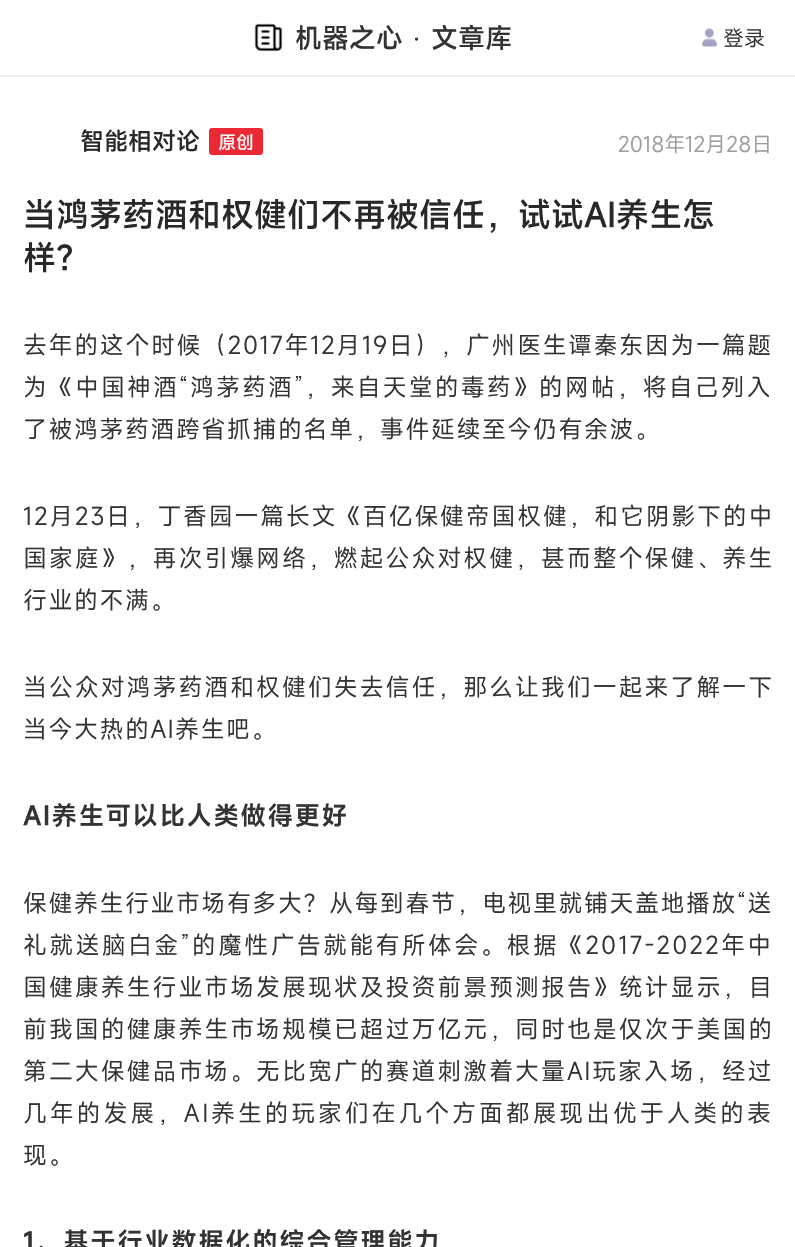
void draw(SkCanvas* canvas) {
	SkPaint paint;
	paint.setAntiAlias(true);
	auto spacedText = [&](const char* s, float x, float y, const SkFont& font, const SkPaint& ink, float letter, float word) {
		std::vector<SkGlyphID> glyphs(font.countText(s, strlen(s), SkTextEncoding::kUTF8));
		std::vector<float> xs(glyphs.size());
		font.textToGlyphs(s, strlen(s), SkTextEncoding::kUTF8, glyphs);
		font.getXPos(glyphs, xs, x);
		float extra = 0;
		for (size_t i = 0; i < glyphs.size(); i++) {
			xs[i] += extra;
			extra += letter + word * (glyphs[i] == font.unicharToGlyph(' '));
		}
		canvas->drawTextBlob(SkTextBlob::MakeFromPosHGlyphs(glyphs, xs, y, font), 0, 0, ink);
	};
	canvas->clear(0xffffffff);
	paint.setColor(0xffebecf1);
	canvas->drawRect(SkRect::MakeXYWH(0, 75, 795, 2), paint);
	canvas->drawImageRect(SkImages::DeferredFromEncodedData(SkData::MakeFromFileName("img1.png")), SkRect::MakeXYWH(254, 23, 29, 29), SkSamplingOptions());
	SkFont f1(fontMgr->matchFamilyStyle("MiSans", SkFontStyle(500, SkFontStyle::kNormal_Width, SkFontStyle::kUpright_Slant)), 27);
	f1.setSubpixel(true);
	paint.setColor(0xff333333);
	canvas->drawString("机器之心", 295, 48, f1, paint);
	SkFont f2(fontMgr->matchFamilyStyle("Liberation Serif", SkFontStyle::Normal()), 27);
	f2.setSubpixel(true);
	canvas->drawString("·", 412, 48, f2, paint);
	canvas->drawString("文章库", 431, 48, f1, paint);
	canvas->drawImageRect(SkImages::DeferredFromEncodedData(SkData::MakeFromFileName("img2.png")), SkRect::MakeXYWH(702, 28, 15, 19), SkSamplingOptions());
	SkFont f3(fontMgr->matchFamilyStyle("MiSans", SkFontStyle::Normal()), 21);
	f3.setSubpixel(true);
	canvas->drawString("登录", 723, 46, f3, paint);
	SkFont f4(fontMgr->matchFamilyStyle("MiSans", SkFontStyle(500, SkFontStyle::kNormal_Width, SkFontStyle::kUpright_Slant)), 24);
	f4.setSubpixel(true);
	paint.setColor(0xff282828);
	canvas->drawString("智能相对论", 80, 150, f4, paint);
	paint.setColor(0xffeb2835);
	canvas->drawRoundRect(SkRect::MakeXYWH(209, 128, 54, 27), 3, 3, paint);
	SkFont f5(fontMgr->matchFamilyStyle("MiSans", SkFontStyle(500, SkFontStyle::kNormal_Width, SkFontStyle::kUpright_Slant)), 18);
	f5.setSubpixel(true);
	paint.setColor(0xfff6f6f6);
	canvas->drawString("原创", 218, 149, f5, paint);
	paint.setColor(0xff9d9d9d);
	canvas->drawString("2018年12月28日", 618, 152, f3, paint);
	SkFont f6(fontMgr->matchFamilyStyle("MiSans", SkFontStyle(500, SkFontStyle::kNormal_Width, SkFontStyle::kUpright_Slant)), 33);
	f6.setSubpixel(true);
	paint.setColor(0xff282828);
	canvas->drawString("当鸿茅药酒和权健们不再被信任，试试AI养生怎", 23, 227, f6, paint);
	canvas->drawString("样？", 23, 270, f6, paint);
	SkFont f7(fontMgr->matchFamilyStyle("MiSans", SkFontStyle::Normal()), 24);
	f7.setSubpixel(true);
	paint.setColor(0xff333333);
	spacedText("去年的这个时候（2017年12月19日），广州医生谭秦东因为一篇题", 23, 354, f7, paint, 1.6, 0);
	spacedText("为《中国神酒“鸿茅药酒”，来自天堂的毒药》的网帖，将自己列入", 23, 396, f7, paint, 2, 0);
	spacedText("了被鸿茅药酒跨省抓捕的名单，事件延续至今仍有余波。", 23, 438, f7, paint, 1.5, 0);
	spacedText("12月23日，丁香园一篇长文《百亿保健帝国权健，和它阴影下的中", 23, 525, f7, paint, 1.7, 0);
	spacedText("国家庭》，再次引爆网络，燃起公众对权健，甚而整个保健、养生", 23, 567, f7, paint, 1.9, 0);
	spacedText("行业的不满。", 23, 609, f7, paint, 1.5, 0);
	spacedText("当公众对鸿茅药酒和权健们失去信任，那么让我们一起来了解一下", 23, 696, f7, paint, 1.9, 0);
	spacedText("当今大热的AI养生吧。", 23, 738, f7, paint, 1.5, 0);
	SkFont f8(fontMgr->matchFamilyStyle("MiSans", SkFontStyle(600, SkFontStyle::kNormal_Width, SkFontStyle::kUpright_Slant)), 25.5);
	f8.setSubpixel(true);
	spacedText("AI养生可以比人类做得更好", 23, 825, f8, paint, 1.5, 0);
	spacedText("保健养生行业市场有多大？从每到春节，电视里就铺天盖地播放“送", 23, 912, f7, paint, 1.5, 0);
	spacedText("礼就送脑白金”的魔性广告就能有所体会。根据《2017-2022年中", 23, 954, f7, paint, 2.25, 0);
	spacedText("国健康养生行业市场发展现状及投资前景预测报告》统计显示，目", 23, 996, f7, paint, 1.9, 0);
	spacedText("前我国的健康养生市场规模已超过万亿元，同时也是仅次于美国的", 23, 1038, f7, paint, 1.9, 0);
	spacedText("第二大保健品市场。无比宽广的赛道刺激着大量AI玩家入场，经过", 23, 1080, f7, paint, 1.9, 0);
	spacedText("几年的发展，AI养生的玩家们在几个方面都展现出优于人类的表", 23, 1122, f7, paint, 2.8, 0);
	spacedText("现。", 23, 1164, f7, paint, 1.5, 0);
	spacedText("1、基于行业数据化的综合管理能力", 23, 1251, f8, paint, 1.5, 0);
}
